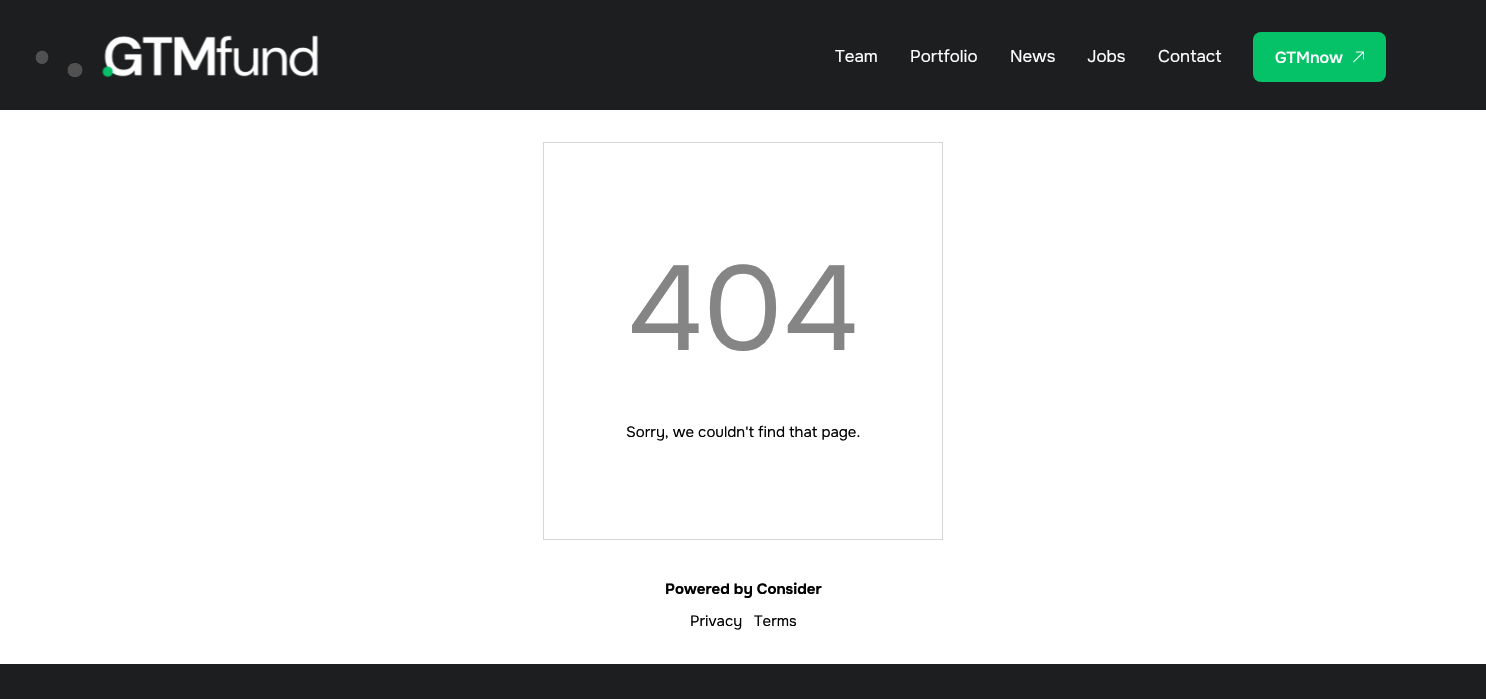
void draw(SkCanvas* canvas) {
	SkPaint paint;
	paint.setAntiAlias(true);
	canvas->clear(0xffffffff);
	canvas->drawImageRect(SkImages::DeferredFromEncodedData(SkData::MakeFromFileName("img1.png")), SkRect::MakeXYWH(0, 0, 1486, 110), SkSamplingOptions());
	canvas->drawImageRect(SkImages::DeferredFromEncodedData(SkData::MakeFromFileName("img2.png")), SkRect::MakeXYWH(101, 35, 218, 43), SkSamplingOptions());
	SkFont f1(fontMgr->matchFamilyStyle("Onest", SkFontStyle::Normal()), 17);
	f1.setSubpixel(true);
	paint.setColor(0xffffffff);
	canvas->drawString("Team", 835, 62, f1, paint);
	canvas->drawString("Portfolio", 910, 62, f1, paint);
	canvas->drawString("News", 1010, 62, f1, paint);
	canvas->drawString("Jobs", 1087, 62, f1, paint);
	canvas->drawString("Contact", 1158, 62, f1, paint);
	paint.setColor(0xff05c168);
	canvas->drawRoundRect(SkRect::MakeXYWH(1253, 32, 133, 50), 8, 8, paint);
	SkFont f2(fontMgr->matchFamilyStyle("Onest", SkFontStyle(500, SkFontStyle::kNormal_Width, SkFontStyle::kUpright_Slant)), 16);
	f2.setSubpixel(true);
	paint.setColor(0xffffffff);
	canvas->drawString("GTMnow", 1275, 63, f2, paint);
	canvas->drawImageRect(SkImages::DeferredFromEncodedData(SkData::MakeFromFileName("img3.png")), SkRect::MakeXYWH(1353, 51, 11, 12), SkSamplingOptions());
	paint.setStroke(true);
	paint.setStrokeWidth(1);
	paint.setColor(0xffd6d6d6);
	canvas->drawRect(SkRect::MakeXYWH(543.5, 142.5, 399, 397), paint);
	SkFont f3(fontMgr->matchFamilyStyle("Onest", SkFontStyle::Normal()), 120);
	f3.setSubpixel(true);
	paint.setStroke(false);
	paint.setColor(0xff858585);
	canvas->drawString("404", 627, 350, f3, paint);
	SkFont f4(fontMgr->matchFamilyStyle("Onest", SkFontStyle::Normal()), 15);
	f4.setSubpixel(true);
	paint.setColor(0xff000000);
	canvas->drawString("Sorry, we couldn't find that page.", 626, 437, f4, paint);
	SkFont f5(fontMgr->matchFamilyStyle("Onest", SkFontStyle::Bold()), 15);
	f5.setSubpixel(true);
	canvas->drawString("Powered by Consider", 665, 594, f5, paint);
	canvas->drawString("Privacy", 690, 626, f4, paint);
	canvas->drawString("Terms", 754, 626, f4, paint);
	paint.setColor(0xff1d1e20);
	canvas->drawRect(SkRect::MakeXYWH(0, 664, 1486, 35), paint);
}
